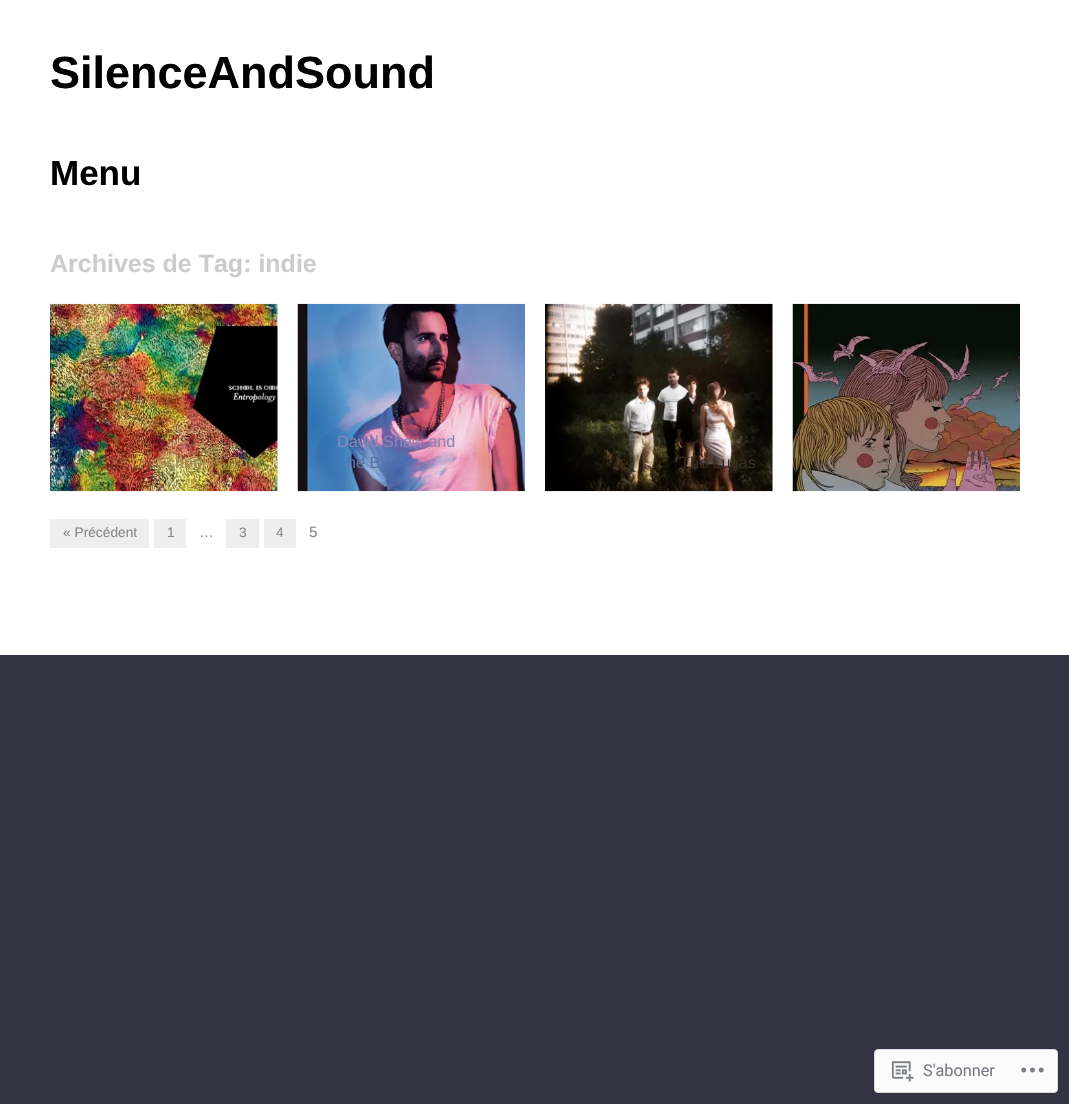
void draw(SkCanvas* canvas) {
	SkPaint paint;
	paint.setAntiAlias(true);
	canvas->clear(0xff333344);
	paint.setColor(0xffffffff);
	canvas->drawRect(SkRect::MakeXYWH(0, 0, 1069, 655), paint);
	SkFont f1(fontMgr->matchFamilyStyle("Liberation Sans", SkFontStyle::Bold()), 45);
	f1.setSubpixel(true);
	paint.setColor(0xff000000);
	canvas->drawString("SilenceAndSound", 50, 88, f1, paint);
	SkFont f2(fontMgr->matchFamilyStyle("Liberation Sans", SkFontStyle::Bold()), 35);
	f2.setSubpixel(true);
	canvas->drawString("Menu", 50, 185, f2, paint);
	SkFont f3(fontMgr->matchFamilyStyle("Liberation Sans", SkFontStyle::Bold()), 25);
	f3.setSubpixel(true);
	paint.setColor(0xffcccccc);
	canvas->drawString("Archives de Tag: indie", 50, 272, f3, paint);
	canvas->drawImageRect(SkImages::DeferredFromEncodedData(SkData::MakeFromFileName("img1.png")), SkRect::MakeXYWH(50, 303, 228, 189), SkSamplingOptions());
	SkFont f4(fontMgr->matchFamilyStyle("Liberation Sans", SkFontStyle::Normal()), 16.25);
	f4.setSubpixel(true);
	paint.setColor(0xffa58b4b);
	canvas->drawString("School Is Cool", 156, 468, f4, paint);
	canvas->drawImageRect(SkImages::DeferredFromEncodedData(SkData::MakeFromFileName("img2.png")), SkRect::MakeXYWH(297, 303, 228, 189), SkSamplingOptions());
	paint.setColor(0xff9082b4);
	canvas->drawString("David Shaw and", 337, 447, f4, paint);
	paint.setColor(0xff5575aa);
	canvas->drawString("he B", 347, 468, f4, paint);
	canvas->drawImageRect(SkImages::DeferredFromEncodedData(SkData::MakeFromFileName("img3.png")), SkRect::MakeXYWH(545, 303, 228, 189), SkSamplingOptions());
	paint.setColor(0xff372b22);
	canvas->drawString("The Luyas", 680, 468, f4, paint);
	canvas->drawImageRect(SkImages::DeferredFromEncodedData(SkData::MakeFromFileName("img4.png")), SkRect::MakeXYWH(792, 303, 228, 189), SkSamplingOptions());
	paint.setColor(0xffeeeeee);
	canvas->drawRect(SkRect::MakeXYWH(50, 519, 99, 29), paint);
	SkFont f5(fontMgr->matchFamilyStyle("Liberation Sans", SkFontStyle::Normal()), 13.75);
	f5.setSubpixel(true);
	paint.setColor(0xff888888);
	canvas->drawString("« Précédent", 63, 537, f5, paint);
	paint.setColor(0xffeeeeee);
	canvas->drawRect(SkRect::MakeXYWH(154, 519, 32, 29), paint);
	paint.setColor(0xff888888);
	canvas->drawString("1", 167, 537, f5, paint);
	SkFont f6(fontMgr->matchFamilyStyle("Liberation Sans", SkFontStyle::Normal()), 15);
	f6.setSubpixel(true);
	canvas->drawString("…", 199, 537, f6, paint);
	paint.setColor(0xffeeeeee);
	canvas->drawRect(SkRect::MakeXYWH(226, 519, 33, 29), paint);
	paint.setColor(0xff888888);
	canvas->drawString("3", 239, 537, f5, paint);
	paint.setColor(0xffeeeeee);
	canvas->drawRect(SkRect::MakeXYWH(264, 519, 32, 29), paint);
	paint.setColor(0xff888888);
	canvas->drawString("4", 276, 537, f5, paint);
	canvas->drawString("5", 309, 537, f6, paint);
	paint.setColor(0xfffbfbfb);
	canvas->drawRoundRect(SkRect::MakeXYWH(874.5, 1049.5, 183, 43), 3.5, 3.5, paint);
	paint.setStroke(true);
	paint.setStrokeWidth(1);
	paint.setColor(0xffd9d9db);
	canvas->drawRoundRect(SkRect::MakeXYWH(874.5, 1049.5, 183, 43), 3.5, 3.5, paint);
	canvas->drawImageRect(SkImages::DeferredFromEncodedData(SkData::MakeFromFileName("img5.png")), SkRect::MakeXYWH(891, 1061, 23, 21), SkSamplingOptions());
	SkFont f7(fontMgr->matchFamilyStyle("Roboto", SkFontStyle::Normal()), 16.25);
	f7.setSubpixel(true);
	paint.setStroke(false);
	paint.setColor(0xff777b81);
	canvas->drawString("S'abonner", 923, 1076, f7, paint);
	canvas->drawImageRect(SkImages::DeferredFromEncodedData(SkData::MakeFromFileName("img6.png")), SkRect::MakeXYWH(1021, 1067, 23, 6), SkSamplingOptions());
}
